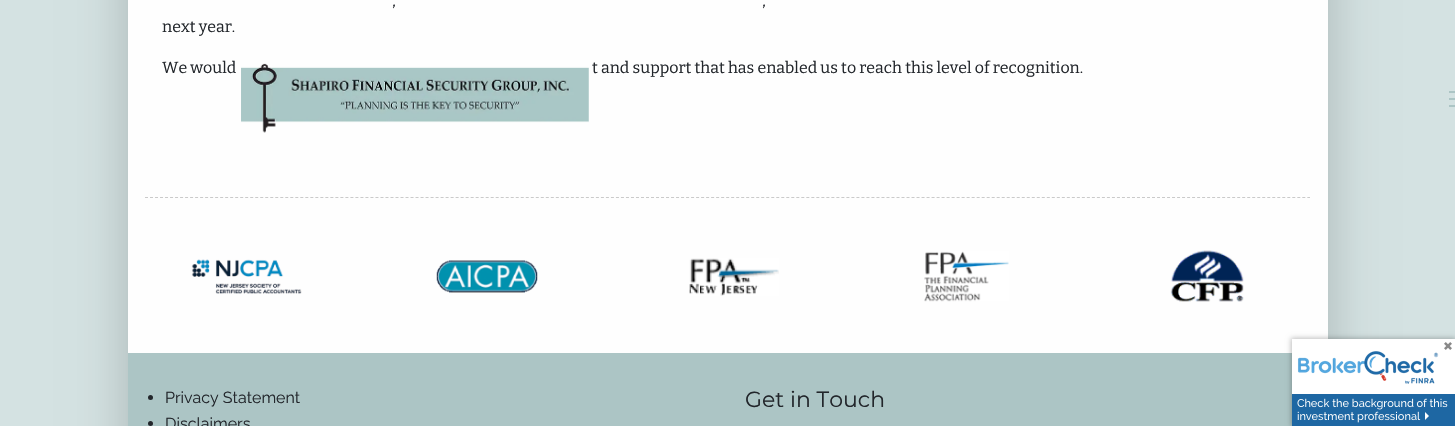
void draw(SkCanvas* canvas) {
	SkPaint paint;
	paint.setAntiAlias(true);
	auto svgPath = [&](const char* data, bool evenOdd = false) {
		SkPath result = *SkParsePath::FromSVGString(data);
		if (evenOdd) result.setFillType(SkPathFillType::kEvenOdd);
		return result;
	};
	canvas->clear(0xffd4e2e2);
	paint.setColor(0x33000000);
	paint.setMaskFilter(SkMaskFilter::MakeBlur(kNormal_SkBlurStyle, 25));
	canvas->drawRect(SkRect::MakeXYWH(128, -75, 1200, 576), paint);
	paint.setMaskFilter(nullptr);
	paint.setColor(0xfffefefe);
	canvas->drawRect(SkRect::MakeXYWH(128, 0, 1200, 353), paint);
	SkFont f1(fontMgr->matchFamilyStyle("Bitter", SkFontStyle(100, SkFontStyle::kNormal_Width, SkFontStyle::kUpright_Slant)), 16);
	f1.setSubpixel(true);
	paint.setColor(0xff22262b);
	canvas->drawString(",", 392, 6, f1, paint);
	canvas->drawString(",", 762, 6, f1, paint);
	canvas->drawString("next year.", 162, 32, f1, paint);
	canvas->drawString("We would", 162, 73, f1, paint);
	canvas->drawString("t and support that has enabled us to reach this level of recognition.", 592, 73, f1, paint);
	canvas->drawImageRect(SkImages::DeferredFromEncodedData(SkData::MakeFromFileName("img1.png")), SkRect::MakeXYWH(241, 63, 348, 70), SkSamplingOptions());
	paint.setColor(0xffacc5c5);
	canvas->drawRect(SkRect::MakeXYWH(1449, 105, 6, 2), paint);
	canvas->drawRect(SkRect::MakeXYWH(1449, 98, 6, 2), paint);
	canvas->drawRect(SkRect::MakeXYWH(1449, 91, 6, 2), paint);
	paint.setStroke(true);
	paint.setStrokeWidth(1);
	paint.setColor(0xffcacaca);
	paint.setPathEffect(SkDashPathEffect::Make({{3, 2.01f}}, 0));
	canvas->drawPath(svgPath("M145 197.5H1310"), paint);
	paint.setPathEffect(nullptr);
	canvas->drawImageRect(SkImages::DeferredFromEncodedData(SkData::MakeFromFileName("img2.png")), SkRect::MakeXYWH(191, 259, 111, 35), SkSamplingOptions());
	canvas->drawImageRect(SkImages::DeferredFromEncodedData(SkData::MakeFromFileName("img3.png")), SkRect::MakeXYWH(436, 260, 102, 33), SkSamplingOptions());
	canvas->drawImageRect(SkImages::DeferredFromEncodedData(SkData::MakeFromFileName("img4.png")), SkRect::MakeXYWH(689, 258, 90, 38), SkSamplingOptions());
	canvas->drawImageRect(SkImages::DeferredFromEncodedData(SkData::MakeFromFileName("img5.png")), SkRect::MakeXYWH(924, 251, 85, 51), SkSamplingOptions());
	canvas->drawImageRect(SkImages::DeferredFromEncodedData(SkData::MakeFromFileName("img6.png")), SkRect::MakeXYWH(1170, 250, 74, 52), SkSamplingOptions());
	paint.setStroke(false);
	paint.setColor(0xffacc5c5);
	canvas->drawRect(SkRect::MakeXYWH(128, 353, 1164, 73), paint);
	paint.setColor(0xff22262b);
	canvas->drawCircle(150.5, 397.5, 2.5, paint);
	SkFont f2(fontMgr->matchFamilyStyle("Raleway", SkFontStyle(100, SkFontStyle::kNormal_Width, SkFontStyle::kUpright_Slant)), 16);
	f2.setSubpixel(true);
	canvas->drawString("Privacy Statement", 165, 403, f2, paint);
	canvas->drawCircle(150.5, 423.5, 2.5, paint);
	canvas->drawString("Disclaimers", 165, 429, f2, paint);
	SkFont f3(fontMgr->matchFamilyStyle("Montserrat", SkFontStyle(100, SkFontStyle::kNormal_Width, SkFontStyle::kUpright_Slant)), 22);
	f3.setSubpixel(true);
	canvas->drawString("Get in Touch", 745, 407, f3, paint);
	paint.setColor(0xffffffff);
	canvas->drawRect(SkRect::MakeXYWH(1292, 339, 163, 55), paint);
	canvas->save();
	canvas->clipPath(svgPath("M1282 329H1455V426H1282ZM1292 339H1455V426H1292Z", true), true);
	paint.setColor(0x40000000);
	paint.setMaskFilter(SkMaskFilter::MakeBlur(kNormal_SkBlurStyle, 2.5));
	canvas->drawRect(SkRect::MakeXYWH(1291, 338, 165, 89), paint);
	paint.setMaskFilter(nullptr);
	canvas->restore();
	canvas->drawImageRect(SkImages::DeferredFromEncodedData(SkData::MakeFromFileName("img7.png")), SkRect::MakeXYWH(1292, 342, 163, 84), SkSamplingOptions());
}
